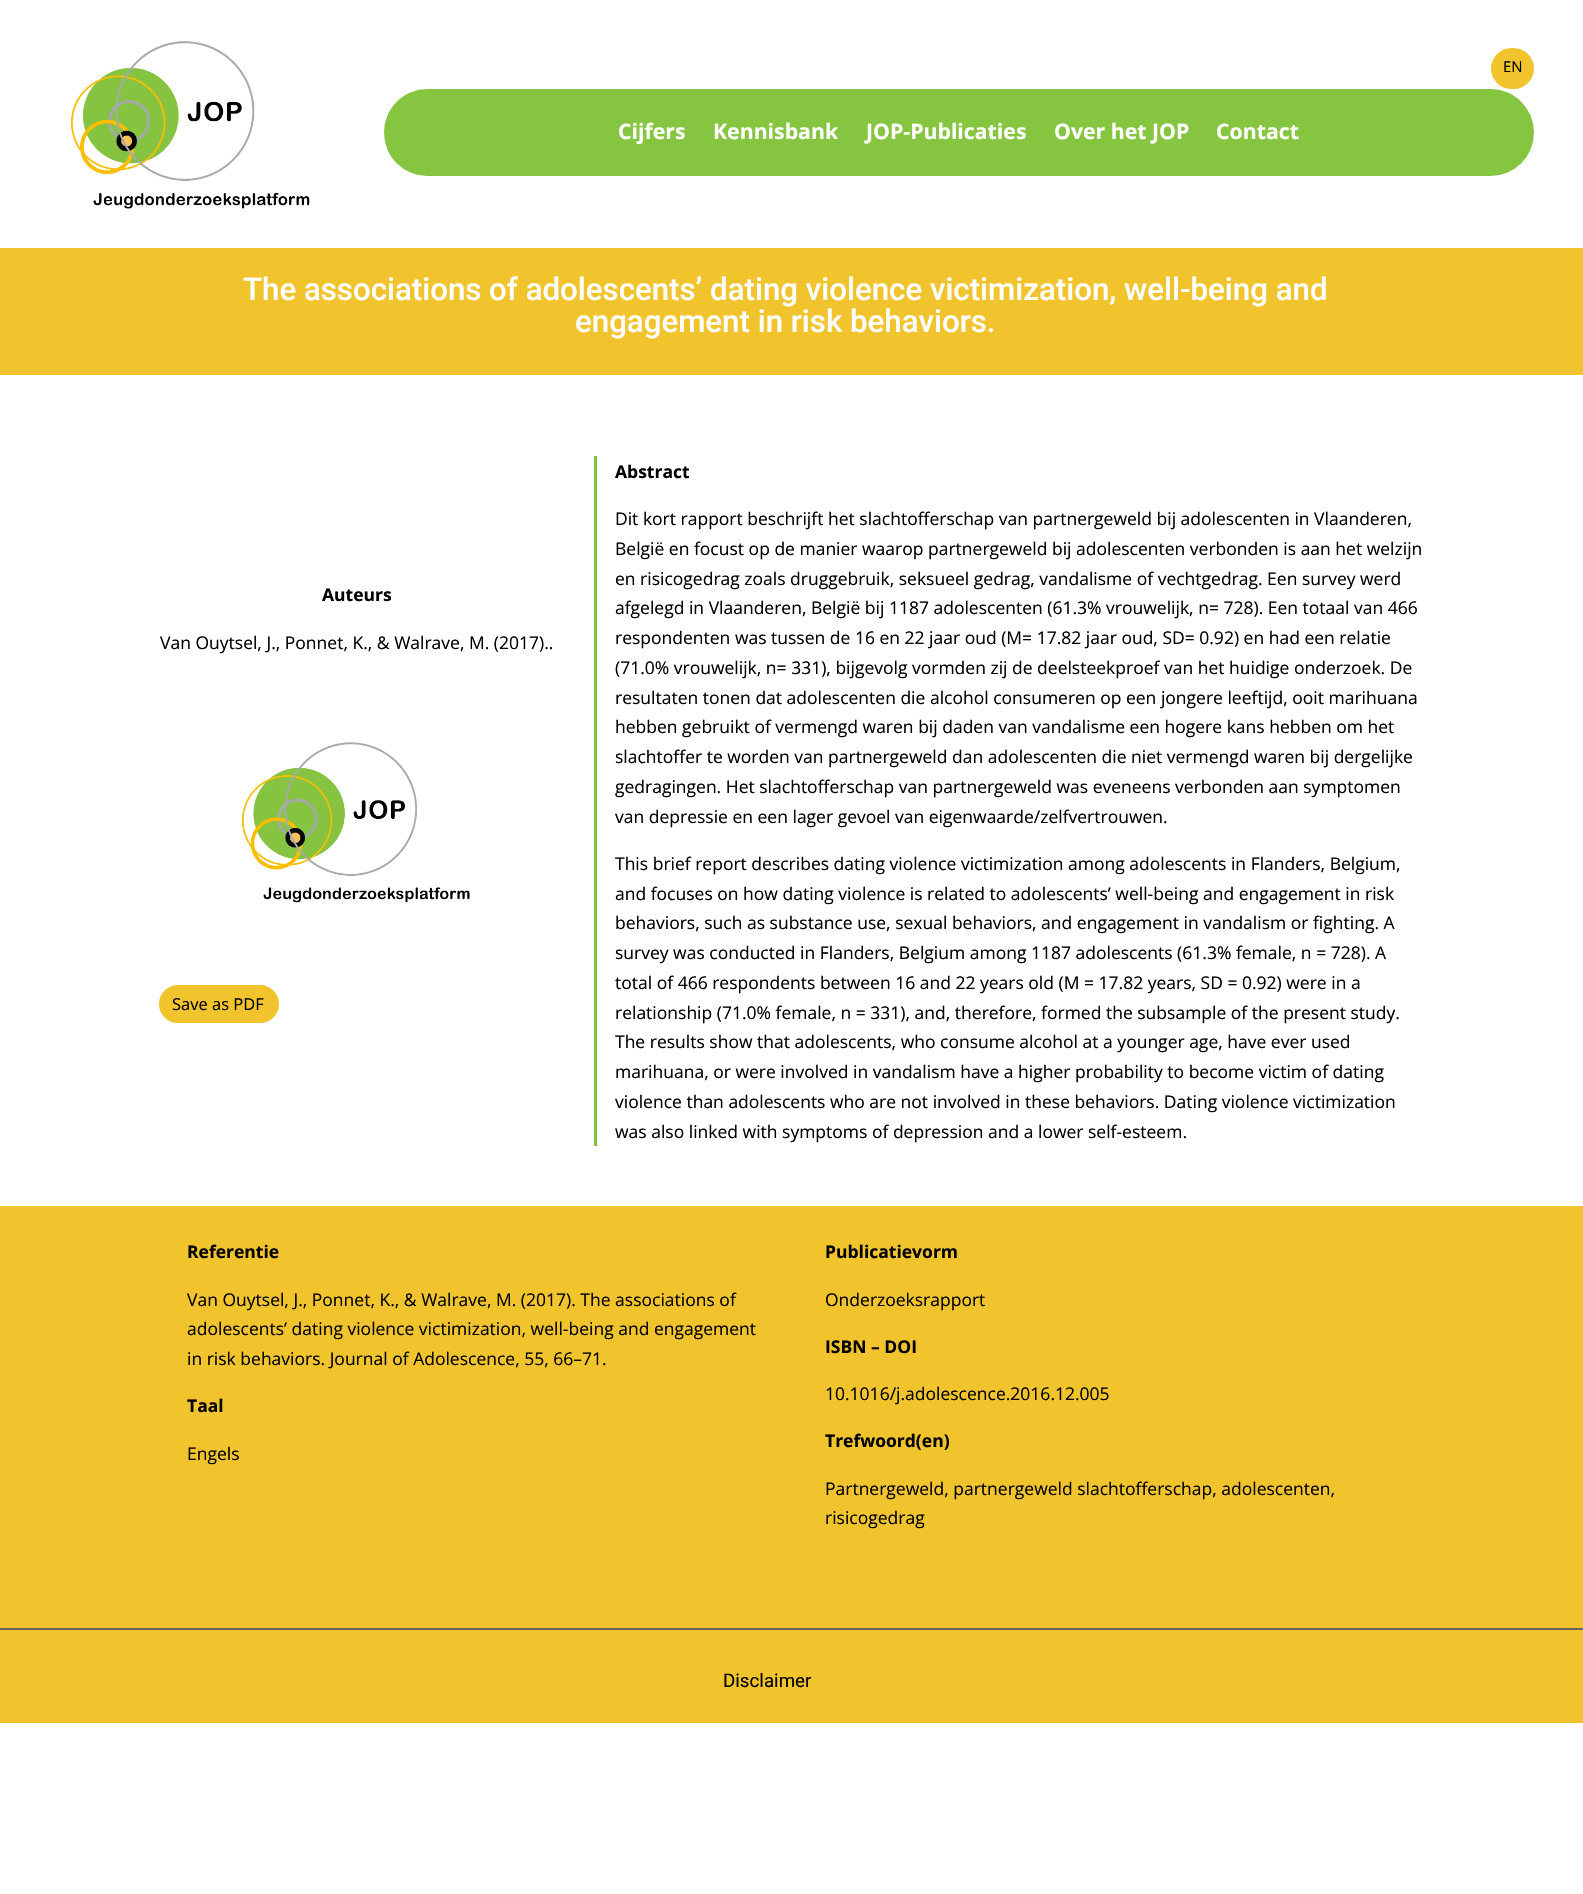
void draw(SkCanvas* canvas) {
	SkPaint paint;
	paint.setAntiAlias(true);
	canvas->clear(0xffffffff);
	canvas->drawImageRect(SkImages::DeferredFromEncodedData(SkData::MakeFromFileName("img1.png")), SkRect::MakeXYWH(70, 41, 240, 168), SkSamplingOptions());
	paint.setColor(0xfff1c32d);
	canvas->drawRoundRect(SkRect::MakeXYWH(1491, 48, 43, 41), 20.5, 20.5, paint);
	SkFont f1(fontMgr->matchFamilyStyle("Open Sans", SkFontStyle::Normal()), 15);
	f1.setSubpixel(true);
	paint.setColor(0xff000000);
	canvas->drawString("EN", 1503, 72, f1, paint);
	paint.setColor(0xff85c53f);
	canvas->drawRoundRect(SkRect::MakeXYWH(384, 89, 1150, 87), 43.5, 43.5, paint);
	SkFont f2(fontMgr->matchFamilyStyle("Open Sans", SkFontStyle::Bold()), 21.25);
	f2.setSubpixel(true);
	paint.setColor(0xffffffff);
	canvas->drawString("Cijfers", 618, 139, f2, paint);
	canvas->drawString("Kennisbank", 713, 139, f2, paint);
	canvas->drawString("JOP-Publicaties", 866, 139, f2, paint);
	canvas->drawString("Over het JOP", 1054, 139, f2, paint);
	canvas->drawString("Contact", 1216, 139, f2, paint);
	paint.setColor(0xfff1c32d);
	canvas->drawRect(SkRect::MakeXYWH(0, 248, 1583, 127), paint);
	SkFont f3(fontMgr->matchFamilyStyle("Roboto", SkFontStyle(500, SkFontStyle::kNormal_Width, SkFontStyle::kUpright_Slant)), 31.25);
	f3.setSubpixel(true);
	paint.setColor(0xffffffff);
	canvas->drawString("The associations of adolescents’ dating violence victimization, well-being and", 243, 300, f3, paint);
	canvas->drawString("engagement in risk behaviors.", 575, 332, f3, paint);
	SkFont f4(fontMgr->matchFamilyStyle("Open Sans", SkFontStyle::Bold()), 17.5);
	f4.setSubpixel(true);
	paint.setColor(0xff000000);
	canvas->drawString("Auteurs", 322, 601, f4, paint);
	SkFont f5(fontMgr->matchFamilyStyle("Open Sans", SkFontStyle::Normal()), 17.5);
	f5.setSubpixel(true);
	canvas->drawString("Van Ouytsel, J., Ponnet, K., & Walrave, M. (2017)..", 160, 649, f5, paint);
	canvas->drawImageRect(SkImages::DeferredFromEncodedData(SkData::MakeFromFileName("img2.png")), SkRect::MakeXYWH(241, 742, 229, 161), SkSamplingOptions());
	paint.setColor(0xfff1c32d);
	canvas->drawRoundRect(SkRect::MakeXYWH(162, 988, 114, 32), 16, 16, paint);
	paint.setStroke(true);
	paint.setStrokeWidth(6);
	canvas->drawRoundRect(SkRect::MakeXYWH(162, 988, 114, 32), 16, 16, paint);
	SkFont f6(fontMgr->matchFamilyStyle("Open Sans", SkFontStyle::Normal()), 16.5);
	f6.setSubpixel(true);
	paint.setStroke(false);
	paint.setColor(0xff000000);
	canvas->drawString("Save as PDF", 172, 1010, f6, paint);
	paint.setColor(0xff84c43c);
	canvas->drawRect(SkRect::MakeXYWH(594, 456, 3, 690), paint);
	paint.setColor(0xff000000);
	canvas->drawString("Abstract", 615, 478, f4, paint);
	canvas->drawString("Dit kort rapport beschrijft het slachtofferschap van partnergeweld bij adolescenten in Vlaanderen,", 615, 525, f5, paint);
	canvas->drawString("België en focust op de manier waarop partnergeweld bij adolescenten verbonden is aan het welzijn", 615, 555, f5, paint);
	canvas->drawString("en risicogedrag zoals druggebruik, seksueel gedrag, vandalisme of vechtgedrag. Een survey werd", 615, 585, f5, paint);
	canvas->drawString("afgelegd in Vlaanderen, België bij 1187 adolescenten (61.3% vrouwelijk, n= 728). Een totaal van 466", 615, 614, f5, paint);
	canvas->drawString("respondenten was tussen de 16 en 22 jaar oud (M= 17.82 jaar oud, SD= 0.92) en had een relatie", 615, 644, f5, paint);
	canvas->drawString("(71.0% vrouwelijk, n= 331), bijgevolg vormden zij de deelsteekproef van het huidige onderzoek. De", 615, 674, f5, paint);
	canvas->drawString("resultaten tonen dat adolescenten die alcohol consumeren op een jongere leeftijd, ooit marihuana", 615, 704, f5, paint);
	canvas->drawString("hebben gebruikt of vermengd waren bij daden van vandalisme een hogere kans hebben om het", 615, 733, f5, paint);
	canvas->drawString("slachtoffer te worden van partnergeweld dan adolescenten die niet vermengd waren bij dergelijke", 615, 763, f5, paint);
	canvas->drawString("gedragingen. Het slachtofferschap van partnergeweld was eveneens verbonden aan symptomen", 615, 793, f5, paint);
	canvas->drawString("van depressie en een lager gevoel van eigenwaarde/zelfvertrouwen.", 615, 823, f5, paint);
	canvas->drawString("This brief report describes dating violence victimization among adolescents in Flanders, Belgium,", 615, 870, f5, paint);
	canvas->drawString("and focuses on how dating violence is related to adolescents’ well-being and engagement in risk", 615, 900, f5, paint);
	canvas->drawString("behaviors, such as substance use, sexual behaviors, and engagement in vandalism or fighting. A", 615, 929, f5, paint);
	canvas->drawString("survey was conducted in Flanders, Belgium among 1187 adolescents (61.3% female, n = 728). A", 615, 959, f5, paint);
	canvas->drawString("total of 466 respondents between 16 and 22 years old (M = 17.82 years, SD = 0.92) were in a", 615, 989, f5, paint);
	canvas->drawString("relationship (71.0% female, n = 331), and, therefore, formed the subsample of the present study.", 615, 1019, f5, paint);
	canvas->drawString("The results show that adolescents, who consume alcohol at a younger age, have ever used", 615, 1048, f5, paint);
	canvas->drawString("marihuana, or were involved in vandalism have a higher probability to become victim of dating", 615, 1078, f5, paint);
	canvas->drawString("violence than adolescents who are not involved in these behaviors. Dating violence victimization", 615, 1108, f5, paint);
	canvas->drawString("was also linked with symptoms of depression and a lower self-esteem.", 615, 1138, f5, paint);
	paint.setColor(0xfff1c32d);
	canvas->drawRect(SkRect::MakeXYWH(0, 1206, 1583, 422), paint);
	paint.setColor(0xff000000);
	canvas->drawString("Referentie", 187, 1258, f4, paint);
	canvas->drawString("Van Ouytsel, J., Ponnet, K., & Walrave, M. (2017). The associations of", 187, 1306, f5, paint);
	canvas->drawString("adolescents’ dating violence victimization, well-being and engagement", 187, 1335, f5, paint);
	canvas->drawString("in risk behaviors. Journal of Adolescence, 55, 66–71.", 187, 1365, f5, paint);
	canvas->drawString("Taal", 187, 1412, f4, paint);
	canvas->drawString("Engels", 187, 1460, f5, paint);
	canvas->drawString("Publicatievorm", 825, 1258, f4, paint);
	canvas->drawString("Onderzoeksrapport", 825, 1306, f5, paint);
	canvas->drawString("ISBN – DOI", 825, 1353, f4, paint);
	canvas->drawString("10.1016/j.adolescence.2016.12.005", 825, 1400, f5, paint);
	canvas->drawString("Trefwoord(en)", 825, 1447, f4, paint);
	canvas->drawString("Partnergeweld, partnergeweld slachtofferschap, adolescenten,", 825, 1495, f5, paint);
	canvas->drawString("risicogedrag", 825, 1524, f5, paint);
	paint.setColor(0xff666666);
	canvas->drawRect(SkRect::MakeXYWH(0, 1628, 1583, 2), paint);
	paint.setColor(0xfff1c32d);
	canvas->drawRect(SkRect::MakeXYWH(0, 1630, 1583, 93), paint);
	SkFont f7(fontMgr->matchFamilyStyle("Roboto", SkFontStyle::Normal()), 18.75);
	f7.setSubpixel(true);
	paint.setColor(0xff000000);
	canvas->drawString("Disclaimer", 723, 1687, f7, paint);
}
